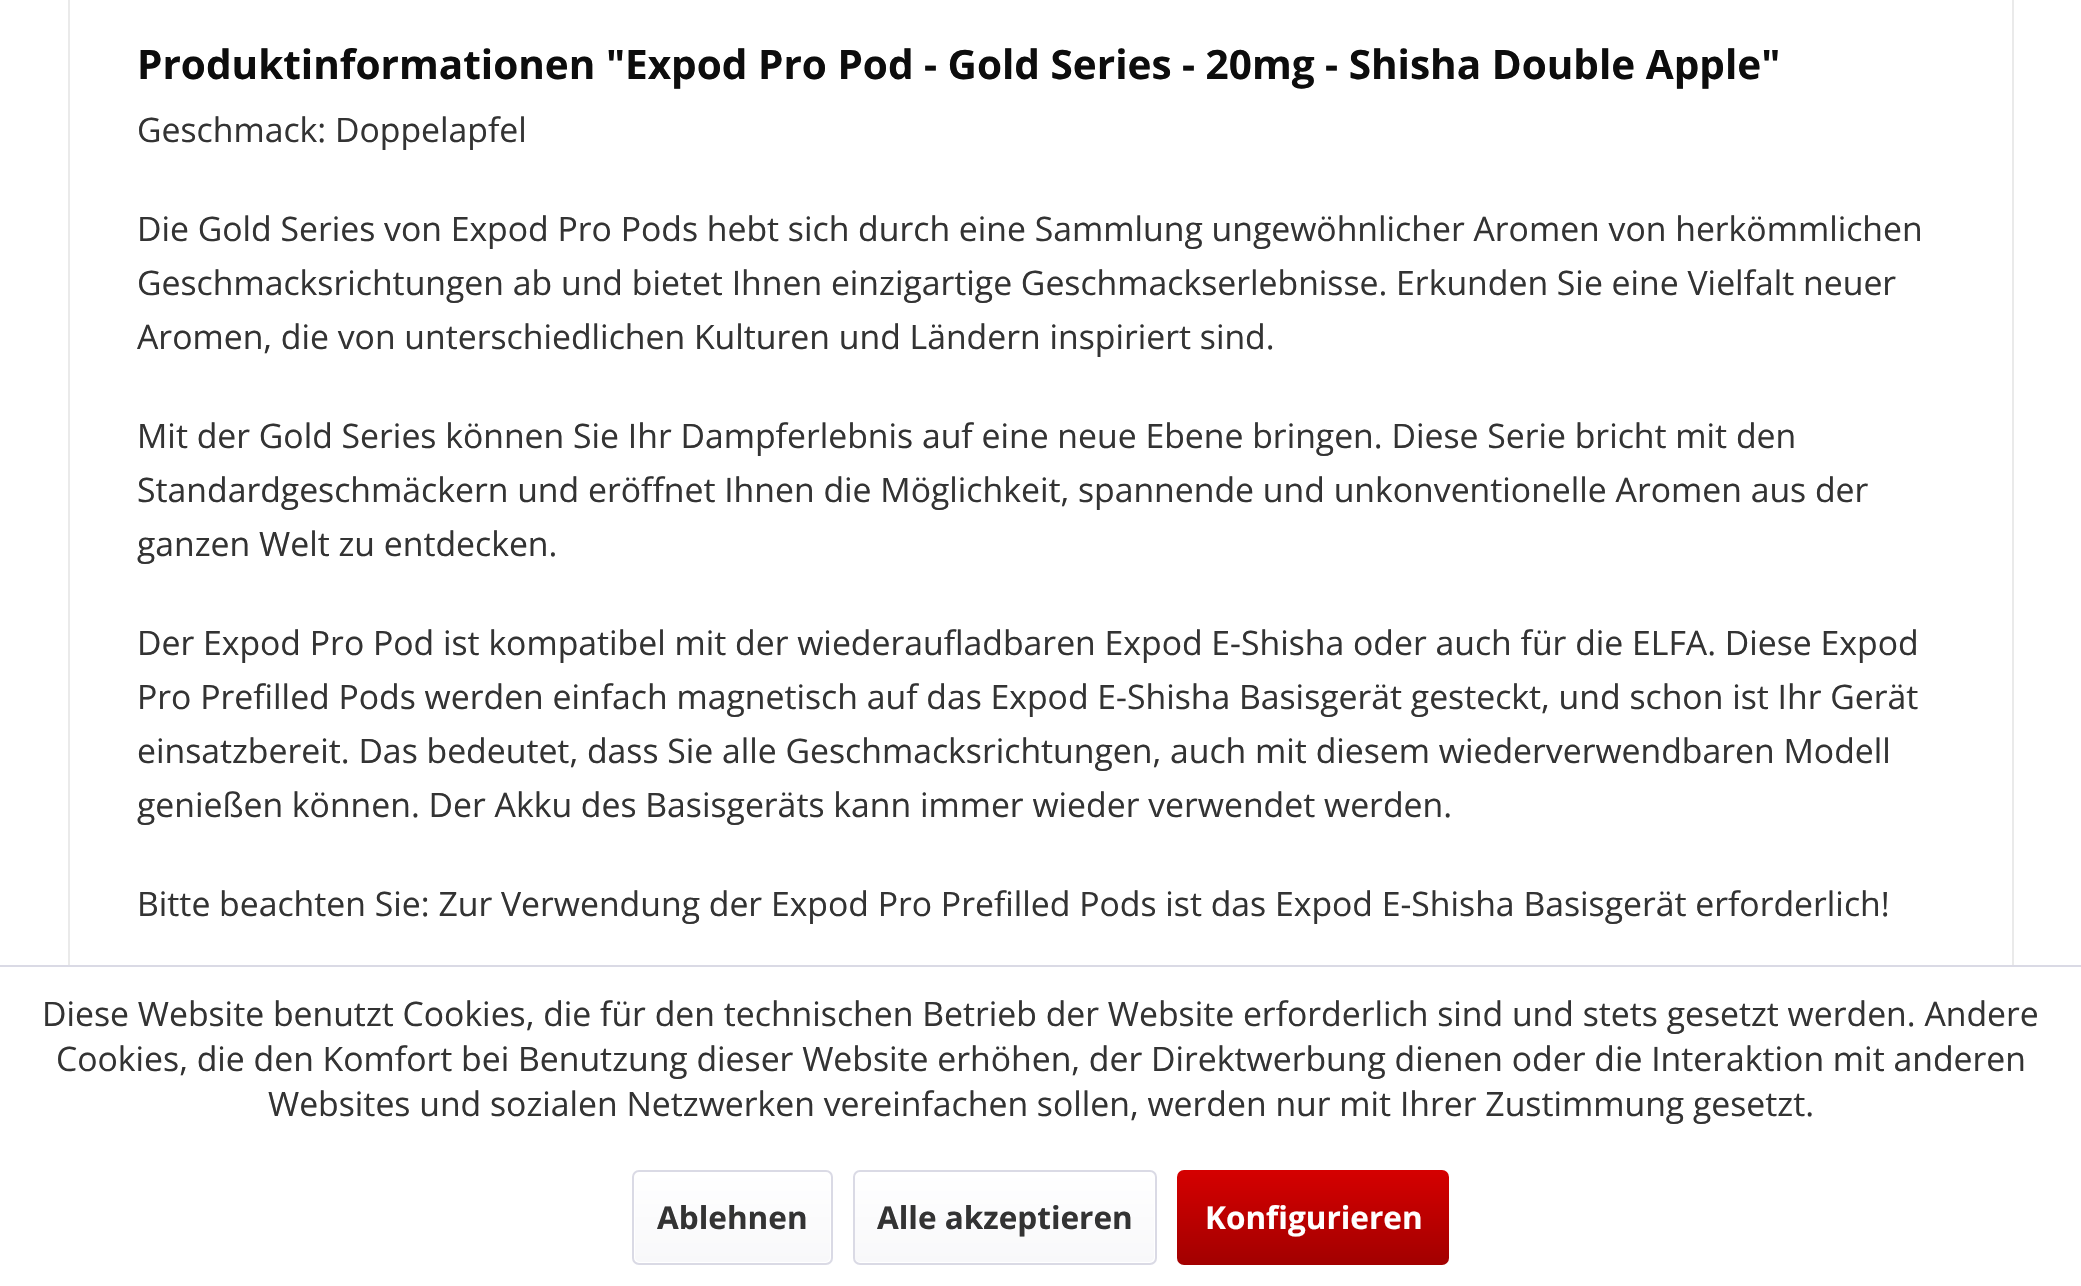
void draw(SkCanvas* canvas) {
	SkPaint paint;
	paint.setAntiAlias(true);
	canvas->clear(0xffffffff);
	paint.setStroke(true);
	paint.setStrokeWidth(2);
	paint.setColor(0xffeaeaea);
	canvas->drawRect(SkRect::MakeXYWH(69, -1, 1944, 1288), paint);
	SkFont f1(fontMgr->matchFamilyStyle("Open Sans", SkFontStyle::Bold()), 40.5);
	f1.setSubpixel(true);
	paint.setStroke(false);
	paint.setColor(0xff0d0d0d);
	canvas->drawString("Produktinformationen \"Expod Pro Pod - Gold Series - 20mg - Shisha Double Apple\"", 137, 79, f1, paint);
	SkFont f2(fontMgr->matchFamilyStyle("Open Sans", SkFontStyle::Normal()), 33.75);
	f2.setSubpixel(true);
	paint.setColor(0xff333333);
	canvas->drawString("Geschmack: Doppelapfel", 137, 142, f2, paint);
	canvas->drawString("Die Gold Series von Expod Pro Pods hebt sich durch eine Sammlung ungewöhnlicher Aromen von herkömmlichen", 137, 241, f2, paint);
	canvas->drawString("Geschmacksrichtungen ab und bietet Ihnen einzigartige Geschmackserlebnisse. Erkunden Sie eine Vielfalt neuer", 137, 295, f2, paint);
	canvas->drawString("Aromen, die von unterschiedlichen Kulturen und Ländern inspiriert sind.", 137, 349, f2, paint);
	canvas->drawString("Mit der Gold Series können Sie Ihr Dampferlebnis auf eine neue Ebene bringen. Diese Serie bricht mit den", 137, 448, f2, paint);
	canvas->drawString("Standardgeschmäckern und eröffnet Ihnen die Möglichkeit, spannende und unkonventionelle Aromen aus der", 137, 502, f2, paint);
	canvas->drawString("ganzen Welt zu entdecken.", 137, 556, f2, paint);
	canvas->drawString("Der Expod Pro Pod ist kompatibel mit der wiederaufladbaren Expod E-Shisha oder auch für die ELFA. Diese Expod", 137, 655, f2, paint);
	canvas->drawString("Pro Prefilled Pods werden einfach magnetisch auf das Expod E-Shisha Basisgerät gesteckt, und schon ist Ihr Gerät", 137, 709, f2, paint);
	canvas->drawString("einsatzbereit. Das bedeutet, dass Sie alle Geschmacksrichtungen, auch mit diesem wiederverwendbaren Modell", 137, 763, f2, paint);
	canvas->drawString("genießen können. Der Akku des Basisgeräts kann immer wieder verwendet werden.", 137, 817, f2, paint);
	canvas->drawString("Bitte beachten Sie: Zur Verwendung der Expod Pro Prefilled Pods ist das Expod E-Shisha Basisgerät erforderlich!", 137, 916, f2, paint);
	paint.setColor(0xffffffff);
	canvas->drawRect(SkRect::MakeXYWH(68, 967, 1946, 319), paint);
	paint.setColor(0xffdadae5);
	canvas->drawRect(SkRect::MakeXYWH(0, 965, 2081, 2), paint);
	paint.setColor(0xff333333);
	canvas->drawString("Diese Website benutzt Cookies, die für den technischen Betrieb der Website erforderlich sind und stets gesetzt werden. Andere", 42, 1026, f2, paint);
	canvas->drawString("Cookies, die den Komfort bei Benutzung dieser Website erhöhen, der Direktwerbung dienen oder die Interaktion mit anderen", 56, 1071, f2, paint);
	canvas->drawString("Websites und sozialen Netzwerken vereinfachen sollen, werden nur mit Ihrer Zustimmung gesetzt.", 268, 1116, f2, paint);
	{
		const SkColor colors[] = {0xffffffff, 0xfff8f8fa};
		const float stops[] = {0, 1};
		const SkPoint ends[] = {{732, 1172}, {732, 1262}};
		paint.setShader(SkGradientShader::MakeLinear(ends, colors, stops, 2, SkTileMode::kClamp));
		paint.setAlpha(255);
	}
	canvas->drawRoundRect(SkRect::MakeXYWH(635, 1172, 195, 90), 5, 5, paint);
	paint.setStroke(true);
	paint.setShader(nullptr);
	paint.setColor(0xffdadae5);
	canvas->drawRoundRect(SkRect::MakeXYWH(633, 1171, 199, 93), 6, 6, paint);
	SkFont f3(fontMgr->matchFamilyStyle("Open Sans", SkFontStyle::Bold()), 31.5);
	f3.setSubpixel(true);
	paint.setStroke(false);
	paint.setColor(0xff333333);
	canvas->drawString("Ablehnen", 657, 1229, f3, paint);
	{
		const SkColor colors[] = {0xffffffff, 0xfff8f8fa};
		const float stops[] = {0, 1};
		const SkPoint ends[] = {{1005, 1172}, {1005, 1262}};
		paint.setShader(SkGradientShader::MakeLinear(ends, colors, stops, 2, SkTileMode::kClamp));
		paint.setAlpha(255);
	}
	canvas->drawRoundRect(SkRect::MakeXYWH(855, 1172, 299, 90), 5, 5, paint);
	paint.setStroke(true);
	paint.setShader(nullptr);
	paint.setColor(0xffdadae5);
	canvas->drawRoundRect(SkRect::MakeXYWH(854, 1171, 302, 93), 6, 6, paint);
	paint.setStroke(false);
	paint.setColor(0xff333333);
	canvas->drawString("Alle akzeptieren", 877, 1229, f3, paint);
	{
		const SkColor colors[] = {0xffd50000, 0xffa20000};
		const float stops[] = {0, 1};
		const SkPoint ends[] = {{1313, 1170}, {1313, 1265}};
		paint.setShader(SkGradientShader::MakeLinear(ends, colors, stops, 2, SkTileMode::kClamp));
		paint.setAlpha(255);
	}
	canvas->drawRoundRect(SkRect::MakeXYWH(1177, 1170, 272, 95), 7, 7, paint);
	paint.setShader(nullptr);
	paint.setColor(0xffffffff);
	canvas->drawString("Konfigurieren", 1205, 1229, f3, paint);
}
